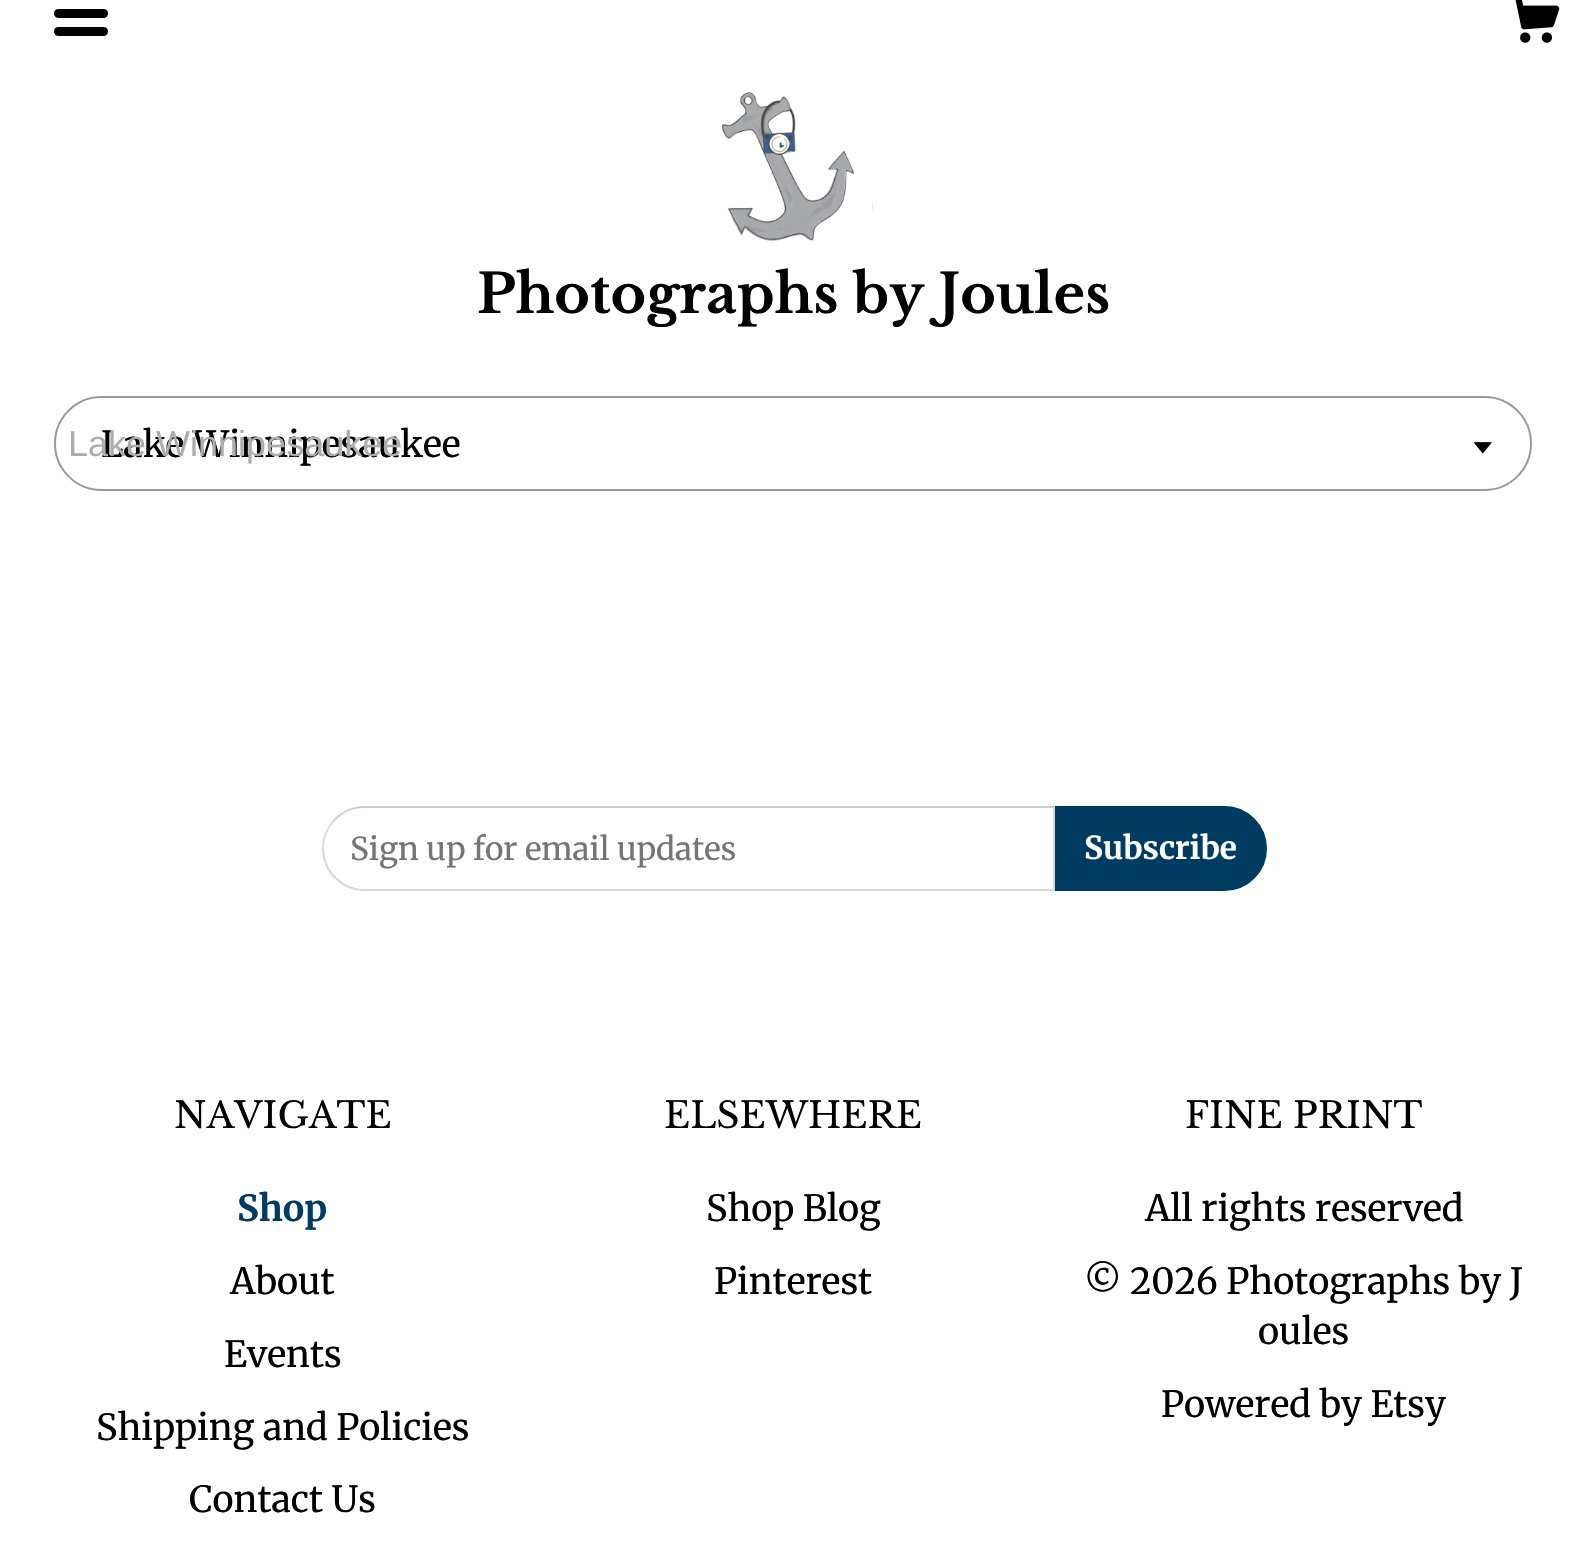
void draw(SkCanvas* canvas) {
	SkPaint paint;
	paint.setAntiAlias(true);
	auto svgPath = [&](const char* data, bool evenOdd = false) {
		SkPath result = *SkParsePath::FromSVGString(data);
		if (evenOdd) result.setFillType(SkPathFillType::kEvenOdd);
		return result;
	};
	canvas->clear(0xffffffff);
	paint.setColor(0xff000000);
	canvas->drawRoundRect(SkRect::MakeXYWH(54, 9, 54, 9), 4.5, 4.5, paint);
	canvas->drawRoundRect(SkRect::MakeXYWH(54, 27, 54, 9), 4.5, 4.5, paint);
	canvas->drawImageRect(SkImages::DeferredFromEncodedData(SkData::MakeFromFileName("img1.png")), SkRect::MakeXYWH(1515, 0, 45, 43), SkSamplingOptions());
	canvas->drawImageRect(SkImages::DeferredFromEncodedData(SkData::MakeFromFileName("img2.png")), SkRect::MakeXYWH(721, 92, 152, 149), SkSamplingOptions());
	SkFont f1(fontMgr->matchFamilyStyle("Libre Baskerville", SkFontStyle::Bold()), 54);
	f1.setSubpixel(true);
	canvas->drawString("Photographs by Joules", 477, 313, f1, paint);
	paint.setStroke(true);
	paint.setStrokeWidth(2);
	paint.setColor(0xff999999);
	canvas->drawRoundRect(SkRect::MakeXYWH(55, 397, 1476, 93), 46.5, 46.5, paint);
	SkFont f2(fontMgr->matchFamilyStyle("Merriweather", SkFontStyle::Normal()), 36);
	f2.setSubpixel(true);
	paint.setStroke(false);
	paint.setColor(0xff000000);
	canvas->drawString("Lake Winnipesaukee", 101, 457, f2, paint);
	SkFont f3(fontMgr->matchFamilyStyle("Liberation Sans", SkFontStyle::Normal()), 36);
	f3.setSubpixel(true);
	paint.setColor(0xffadadad);
	canvas->drawString("Lake Winnipesaukee", 68, 456, f3, paint);
	canvas->drawImageRect(SkImages::DeferredFromEncodedData(SkData::MakeFromFileName("img3.png")), SkRect::MakeXYWH(1473, 442, 19, 12), SkSamplingOptions());
	paint.setColor(0xffcccccc);
	canvas->drawPath(svgPath("M364 806C353 806 342 811 335 818L336 820C343 812 353 808 364 808H1053L1055 806Z"), paint);
	paint.setColor(0x26000000);
	canvas->drawPath(svgPath("M1055 891V806L1053 808V889Z"), paint);
	canvas->drawPath(svgPath("M364 891H1055L1053 889H364C353 889 343 884 336 877L334 878C342 886 352 891 364 891Z"), paint);
	canvas->drawPath(svgPath("M335 818C318 835 318 862 334 878L336 877C320 861 320 835 336 820Z"), paint);
	SkFont f4(fontMgr->matchFamilyStyle("Merriweather", SkFontStyle::Normal()), 31.5);
	f4.setSubpixel(true);
	paint.setColor(0xff757575);
	canvas->drawString("Sign up for email updates", 350, 860, f4, paint);
	paint.setColor(0xff003b61);
	canvas->drawPath(svgPath("M1056 807H1224.5C1247.5 807 1266 825.5 1266 848.5C1266 871.5 1247.5 890 1224.5 890H1056Z"), paint);
	paint.setStroke(true);
	canvas->drawPath(svgPath("M1056 807H1224.5C1247.5 807 1266 825.5 1266 848.5C1266 871.5 1247.5 890 1224.5 890H1056Z"), paint);
	SkFont f5(fontMgr->matchFamilyStyle("Merriweather", SkFontStyle::Bold()), 31.5);
	f5.setSubpixel(true);
	paint.setStroke(false);
	paint.setColor(0xffffffff);
	canvas->drawString("Subscribe", 1084, 859, f5, paint);
	SkFont f6(fontMgr->matchFamilyStyle("Libre Baskerville", SkFontStyle::Normal()), 36);
	f6.setSubpixel(true);
	paint.setColor(0xff000000);
	canvas->drawString("NAVIGATE", 174, 1128, f6, paint);
	SkFont f7(fontMgr->matchFamilyStyle("Merriweather", SkFontStyle::Bold()), 36);
	f7.setSubpixel(true);
	paint.setColor(0xff003b61);
	canvas->drawString("Shop", 237, 1221, f7, paint);
	paint.setColor(0xff000000);
	canvas->drawString("About", 230, 1294, f2, paint);
	canvas->drawString("Events", 224, 1367, f2, paint);
	canvas->drawString("Shipping and Policies", 96, 1440, f2, paint);
	canvas->drawString("Contact Us", 189, 1512, f2, paint);
	canvas->drawString("ELSEWHERE", 664, 1128, f6, paint);
	canvas->drawString("Shop Blog", 706, 1221, f2, paint);
	canvas->drawString("Pinterest", 714, 1294, f2, paint);
	canvas->drawString("FINE PRINT", 1185, 1128, f6, paint);
	canvas->drawString("All rights reserved", 1145, 1221, f2, paint);
	canvas->drawString("© 2026 Photographs by J", 1084, 1294, f2, paint);
	canvas->drawString("oules", 1258, 1344, f2, paint);
	canvas->drawString("Powered by Etsy", 1161, 1417, f2, paint);
}
